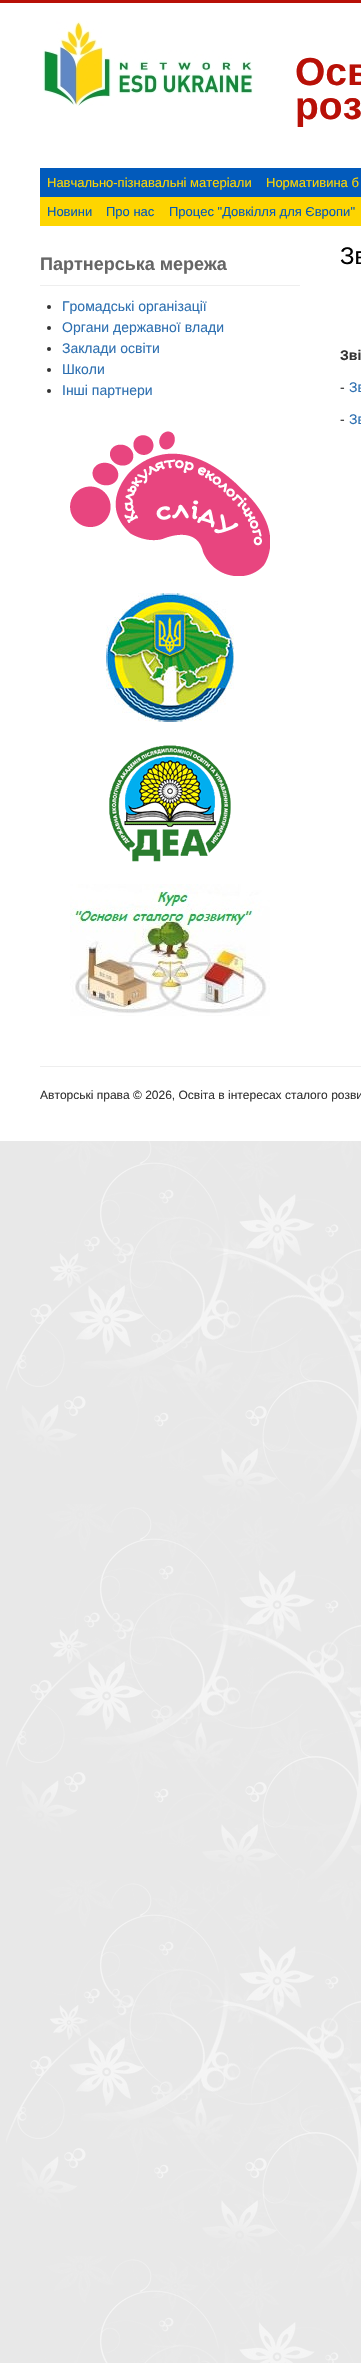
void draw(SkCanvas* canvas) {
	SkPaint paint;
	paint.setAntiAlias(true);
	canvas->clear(0xffe8e8e8);
	canvas->drawImageRect(SkImages::DeferredFromEncodedData(SkData::MakeFromFileName("img1.png")), SkRect::MakeXYWH(6, 1141, 355, 1222), SkSamplingOptions());
	paint.setColor(0xffffffff);
	canvas->drawRect(SkRect::MakeXYWH(0, 3, 361, 1138), paint);
	paint.setColor(0xffb81007);
	canvas->drawRect(SkRect::MakeXYWH(0, 0, 361, 3), paint);
	canvas->drawImageRect(SkImages::DeferredFromEncodedData(SkData::MakeFromFileName("img2.png")), SkRect::MakeXYWH(43, 21, 210, 85), SkSamplingOptions());
	SkFont f1(fontMgr->matchFamilyStyle("Liberation Sans", SkFontStyle::Bold()), 39);
	f1.setSubpixel(true);
	canvas->drawString("Осв", 295, 85, f1, paint);
	canvas->drawString("роз", 295, 119, f1, paint);
	paint.setColor(0xff025abb);
	canvas->drawRect(SkRect::MakeXYWH(40, 168, 321, 29), paint);
	SkFont f2(fontMgr->matchFamilyStyle("Liberation Sans", SkFontStyle::Normal()), 13);
	f2.setSubpixel(true);
	paint.setColor(0xfffed500);
	canvas->drawString("Навчально-пізнавальні матеріали", 47, 187, f2, paint);
	canvas->drawString("Нормативина б", 266, 187, f2, paint);
	canvas->drawRect(SkRect::MakeXYWH(40, 197, 321, 29), paint);
	paint.setColor(0xff025abb);
	canvas->drawString("Новини", 47, 216, f2, paint);
	canvas->drawString("Про нас", 106, 216, f2, paint);
	canvas->drawString("Процес \"Довкілля для Європи\"", 169, 216, f2, paint);
	paint.setColor(0xffeeeeee);
	canvas->drawRect(SkRect::MakeXYWH(40, 285, 260, 1), paint);
	SkFont f3(fontMgr->matchFamilyStyle("Liberation Sans", SkFontStyle::Bold()), 18);
	f3.setSubpixel(true);
	paint.setColor(0xff666666);
	canvas->drawString("Партнерська мережа", 40, 270, f3, paint);
	paint.setColor(0xff333333);
	canvas->drawCircle(49, 307, 2, paint);
	SkFont f4(fontMgr->matchFamilyStyle("Liberation Sans", SkFontStyle::Normal()), 14);
	f4.setSubpixel(true);
	paint.setColor(0xff2e70b1);
	canvas->drawString("Громадські організації", 62, 311, f4, paint);
	paint.setColor(0xff333333);
	canvas->drawCircle(49, 328, 2, paint);
	paint.setColor(0xff2e70b1);
	canvas->drawString("Органи державної влади", 62, 332, f4, paint);
	paint.setColor(0xff333333);
	canvas->drawCircle(49, 349, 2, paint);
	paint.setColor(0xff2e70b1);
	canvas->drawString("Заклади освіти", 62, 353, f4, paint);
	paint.setColor(0xff333333);
	canvas->drawCircle(49, 370, 2, paint);
	paint.setColor(0xff2e70b1);
	canvas->drawString("Школи", 62, 374, f4, paint);
	paint.setColor(0xff333333);
	canvas->drawCircle(49, 391, 2, paint);
	paint.setColor(0xff2e70b1);
	canvas->drawString("Інші партнери", 62, 395, f4, paint);
	canvas->drawImageRect(SkImages::DeferredFromEncodedData(SkData::MakeFromFileName("img3.png")), SkRect::MakeXYWH(70, 431, 200, 145), SkSamplingOptions());
	canvas->drawImageRect(SkImages::DeferredFromEncodedData(SkData::MakeFromFileName("img4.png")), SkRect::MakeXYWH(106, 593, 128, 129), SkSamplingOptions());
	canvas->drawImageRect(SkImages::DeferredFromEncodedData(SkData::MakeFromFileName("img5.png")), SkRect::MakeXYWH(109, 745, 122, 117), SkSamplingOptions());
	canvas->drawImageRect(SkImages::DeferredFromEncodedData(SkData::MakeFromFileName("img6.png")), SkRect::MakeXYWH(70, 884, 200, 132), SkSamplingOptions());
	SkFont f5(fontMgr->matchFamilyStyle("Liberation Sans", SkFontStyle::Normal()), 24);
	f5.setSubpixel(true);
	paint.setColor(0xff000000);
	canvas->drawString("Зв", 340, 264, f5, paint);
	SkFont f6(fontMgr->matchFamilyStyle("Liberation Sans", SkFontStyle::Bold()), 14);
	f6.setSubpixel(true);
	paint.setColor(0xff333333);
	canvas->drawString("Зві", 340, 360, f6, paint);
	canvas->drawString("-", 340, 392, f4, paint);
	paint.setColor(0xff2e70b1);
	canvas->drawString("Зв", 349, 392, f4, paint);
	paint.setColor(0xff333333);
	canvas->drawString("-", 340, 424, f4, paint);
	paint.setColor(0xff2e70b1);
	canvas->drawString("Зв", 349, 424, f4, paint);
	paint.setColor(0xffeeeeee);
	canvas->drawRect(SkRect::MakeXYWH(40, 1066, 321, 1), paint);
	SkFont f7(fontMgr->matchFamilyStyle("Liberation Sans", SkFontStyle::Normal()), 12);
	f7.setSubpixel(true);
	paint.setColor(0xff333333);
	canvas->drawString("Авторські права © 2026, Освіта в інтересах сталого розви", 40, 1099, f7, paint);
}
